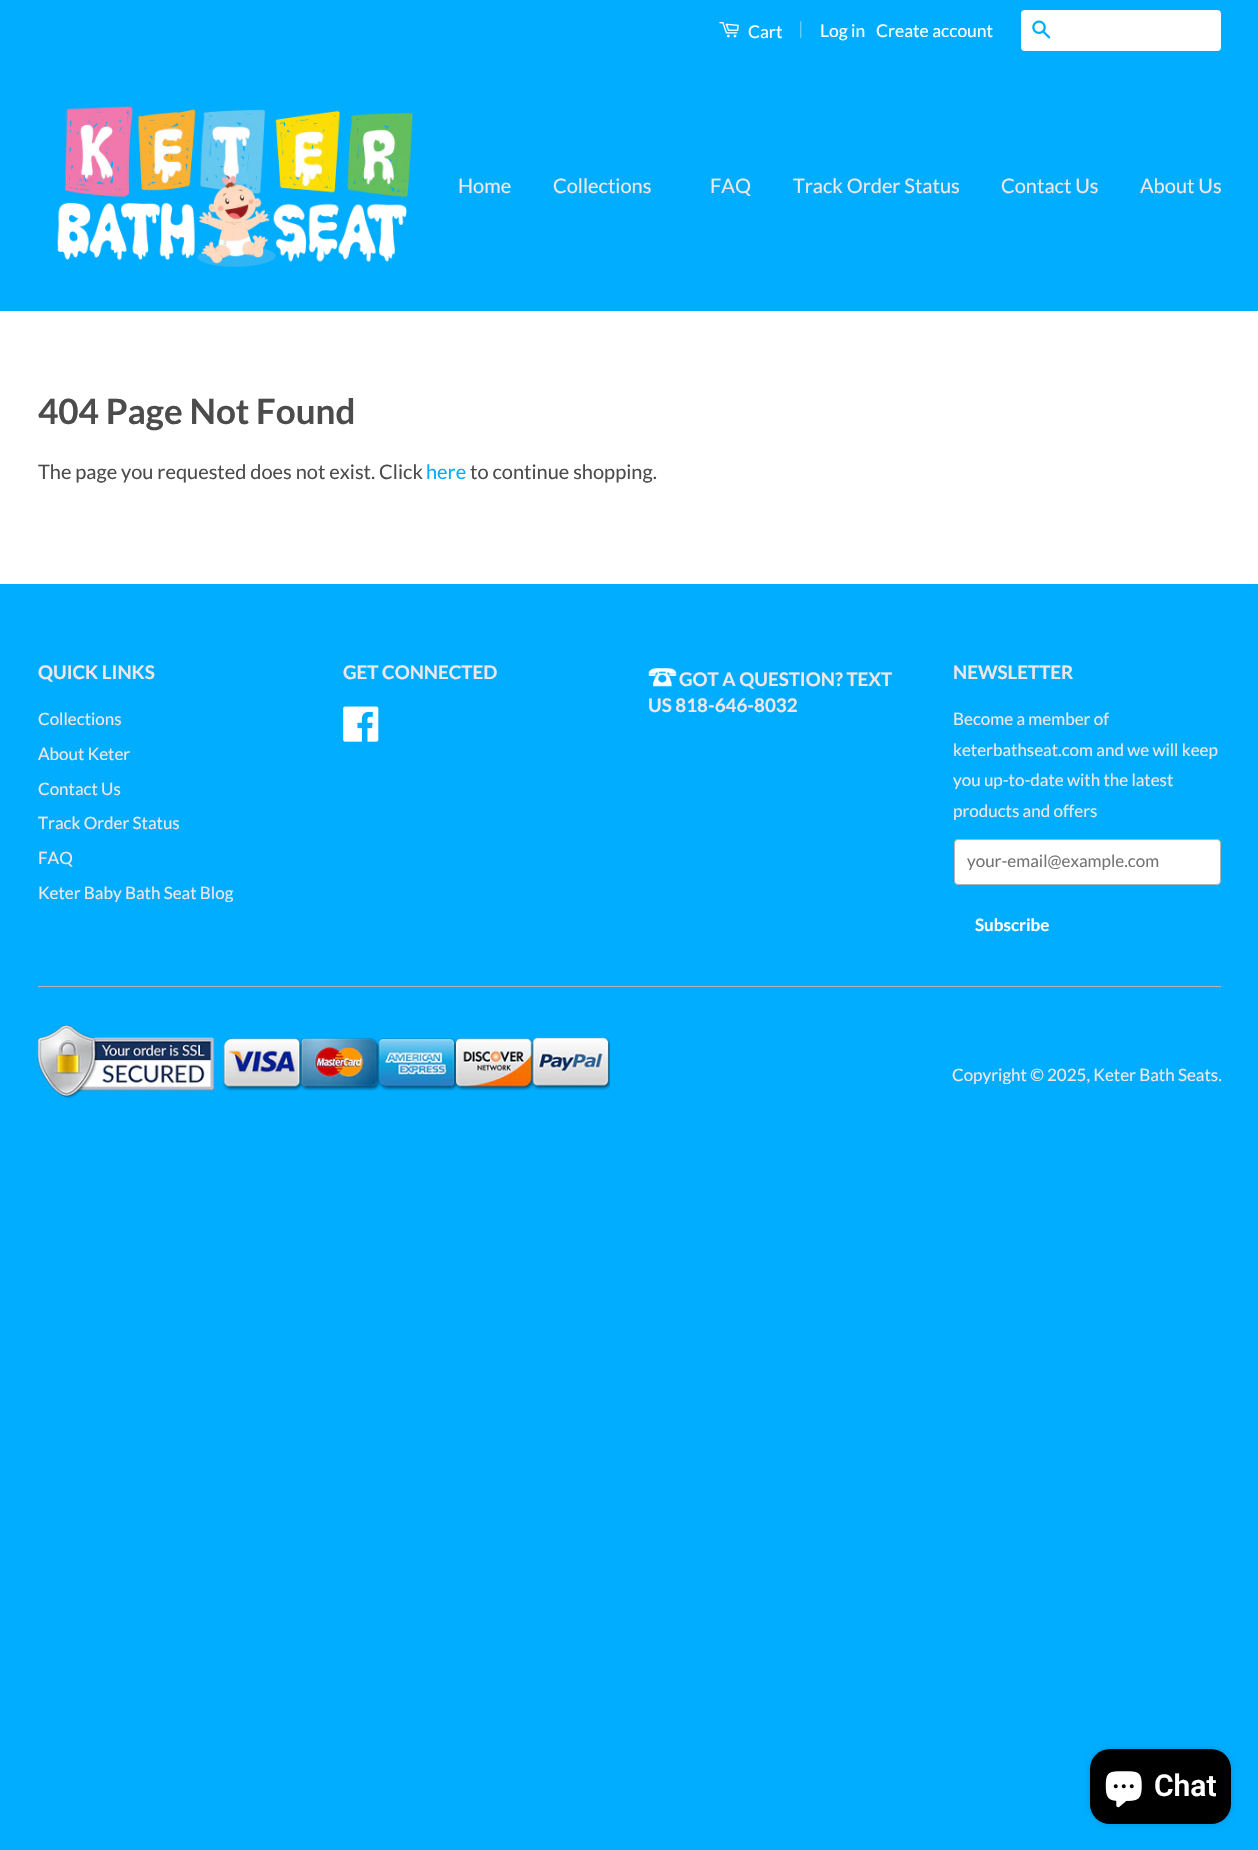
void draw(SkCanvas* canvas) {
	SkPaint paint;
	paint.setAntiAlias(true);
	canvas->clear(0xff00adff);
	paint.setColor(0xffffffff);
	canvas->drawRect(SkRect::MakeXYWH(0, 311, 1258, 273), paint);
	canvas->drawImageRect(SkImages::DeferredFromEncodedData(SkData::MakeFromFileName("img1.png")), SkRect::MakeXYWH(719, 22, 20, 16), SkSamplingOptions());
	SkFont f1(fontMgr->matchFamilyStyle("Lato", SkFontStyle::Normal()), 17.5);
	f1.setSubpixel(true);
	canvas->drawString("Cart", 748, 38, f1, paint);
	paint.setColor(0xff66ceff);
	canvas->drawString("|", 798, 35, f1, paint);
	paint.setColor(0xffffffff);
	canvas->drawString("Log in", 820, 37, f1, paint);
	canvas->drawString("Create account", 876, 37, f1, paint);
	canvas->drawRoundRect(SkRect::MakeXYWH(1021, 10, 200, 41), 4, 4, paint);
	canvas->drawImageRect(SkImages::DeferredFromEncodedData(SkData::MakeFromFileName("img2.png")), SkRect::MakeXYWH(1032, 20, 19, 19), SkSamplingOptions());
	canvas->drawImageRect(SkImages::DeferredFromEncodedData(SkData::MakeFromFileName("img3.png")), SkRect::MakeXYWH(57, 106, 356, 161), SkSamplingOptions());
	SkFont f2(fontMgr->matchFamilyStyle("Lato", SkFontStyle::Normal()), 20);
	f2.setSubpixel(true);
	paint.setColor(0xffefe7e7);
	canvas->drawString("Home", 458, 193, f2, paint);
	canvas->drawString("Collections", 553, 193, f2, paint);
	canvas->drawString("FAQ", 710, 193, f2, paint);
	canvas->drawString("Track Order Status", 793, 193, f2, paint);
	canvas->drawString("Contact Us", 1001, 193, f2, paint);
	canvas->drawString("About Us", 1140, 193, f2, paint);
	SkFont f3(fontMgr->matchFamilyStyle("Lato", SkFontStyle::Bold()), 35);
	f3.setSubpixel(true);
	paint.setColor(0xff4c4c4c);
	canvas->drawString("404 Page Not Found", 38, 424, f3, paint);
	canvas->drawString("The page you requested does not exist. Click", 38, 479, f2, paint);
	paint.setColor(0xff00adff);
	canvas->drawString("here", 426, 479, f2, paint);
	paint.setColor(0xff4c4c4c);
	canvas->drawString("to continue shopping.", 470, 479, f2, paint);
	SkFont f4(fontMgr->matchFamilyStyle("Lato", SkFontStyle::Bold()), 18.75);
	f4.setSubpixel(true);
	paint.setColor(0xffefe7e7);
	canvas->drawString("QUICK LINKS", 38, 679, f4, paint);
	SkFont f5(fontMgr->matchFamilyStyle("Lato", SkFontStyle::Normal()), 17);
	f5.setSubpixel(true);
	canvas->drawString("Collections", 38, 725, f5, paint);
	canvas->drawString("About Keter", 38, 760, f5, paint);
	canvas->drawString("Contact Us", 38, 795, f5, paint);
	canvas->drawString("Track Order Status", 38, 829, f5, paint);
	canvas->drawString("FAQ", 38, 864, f5, paint);
	canvas->drawString("Keter Baby Bath Seat Blog", 38, 899, f5, paint);
	canvas->drawString("GET CONNECTED", 343, 679, f4, paint);
	canvas->drawImageRect(SkImages::DeferredFromEncodedData(SkData::MakeFromFileName("img4.png")), SkRect::MakeXYWH(343, 706, 36, 36), SkSamplingOptions());
	canvas->drawImageRect(SkImages::DeferredFromEncodedData(SkData::MakeFromFileName("img5.png")), SkRect::MakeXYWH(648, 668, 29, 19), SkSamplingOptions());
	canvas->drawString("GOT A QUESTION? TEXT", 679, 686, f4, paint);
	canvas->drawString("US 818-646-8032", 648, 712, f4, paint);
	canvas->drawString("NEWSLETTER", 953, 679, f4, paint);
	canvas->drawString("Become a member of", 953, 725, f5, paint);
	canvas->drawString("keterbathseat.com and we will keep", 953, 756, f5, paint);
	canvas->drawString("you up-to-date with the latest", 953, 786, f5, paint);
	canvas->drawString("products and offers", 953, 817, f5, paint);
	paint.setColor(0xffffffff);
	canvas->drawRoundRect(SkRect::MakeXYWH(954.5, 839.5, 266, 45), 3.5, 3.5, paint);
	paint.setStroke(true);
	paint.setStrokeWidth(1);
	paint.setColor(0xffb3b3b3);
	canvas->drawRoundRect(SkRect::MakeXYWH(954.5, 839.5, 266, 45), 3.5, 3.5, paint);
	paint.setStroke(false);
	paint.setColor(0xff757575);
	canvas->drawString("your-email@example.com", 967, 867, f5, paint);
	SkFont f6(fontMgr->matchFamilyStyle("Lato", SkFontStyle::Bold()), 17);
	f6.setSubpixel(true);
	paint.setColor(0xffffffff);
	canvas->drawString("Subscribe", 975, 931, f6, paint);
	paint.setColor(0xffb3b3b3);
	canvas->drawRect(SkRect::MakeXYWH(38, 986, 1183, 1), paint);
	canvas->drawImageRect(SkImages::DeferredFromEncodedData(SkData::MakeFromFileName("img6.png")), SkRect::MakeXYWH(37, 1025, 573, 74), SkSamplingOptions());
	paint.setColor(0xffefe7e7);
	canvas->drawString("Copyright © 2025, Keter Bath Seats.", 952, 1081, f5, paint);
	paint.setColor(0x26000000);
	paint.setMaskFilter(SkMaskFilter::MakeBlur(kNormal_SkBlurStyle, 3));
	canvas->drawRoundRect(SkRect::MakeXYWH(1090, 1749, 141, 75), 20, 20, paint);
	paint.setMaskFilter(nullptr);
	paint.setColor(0xff000000);
	canvas->drawRoundRect(SkRect::MakeXYWH(1090, 1749, 141, 75), 20, 20, paint);
	canvas->drawImageRect(SkImages::DeferredFromEncodedData(SkData::MakeFromFileName("img7.png")), SkRect::MakeXYWH(1105, 1771, 37, 37), SkSamplingOptions());
	SkFont f7(fontMgr->matchFamilyStyle("Roboto", SkFontStyle(600, SkFontStyle::kNormal_Width, SkFontStyle::kUpright_Slant)), 30);
	f7.setSubpixel(true);
	paint.setColor(0xffffffff);
	canvas->drawString("Chat", 1154, 1796, f7, paint);
}
